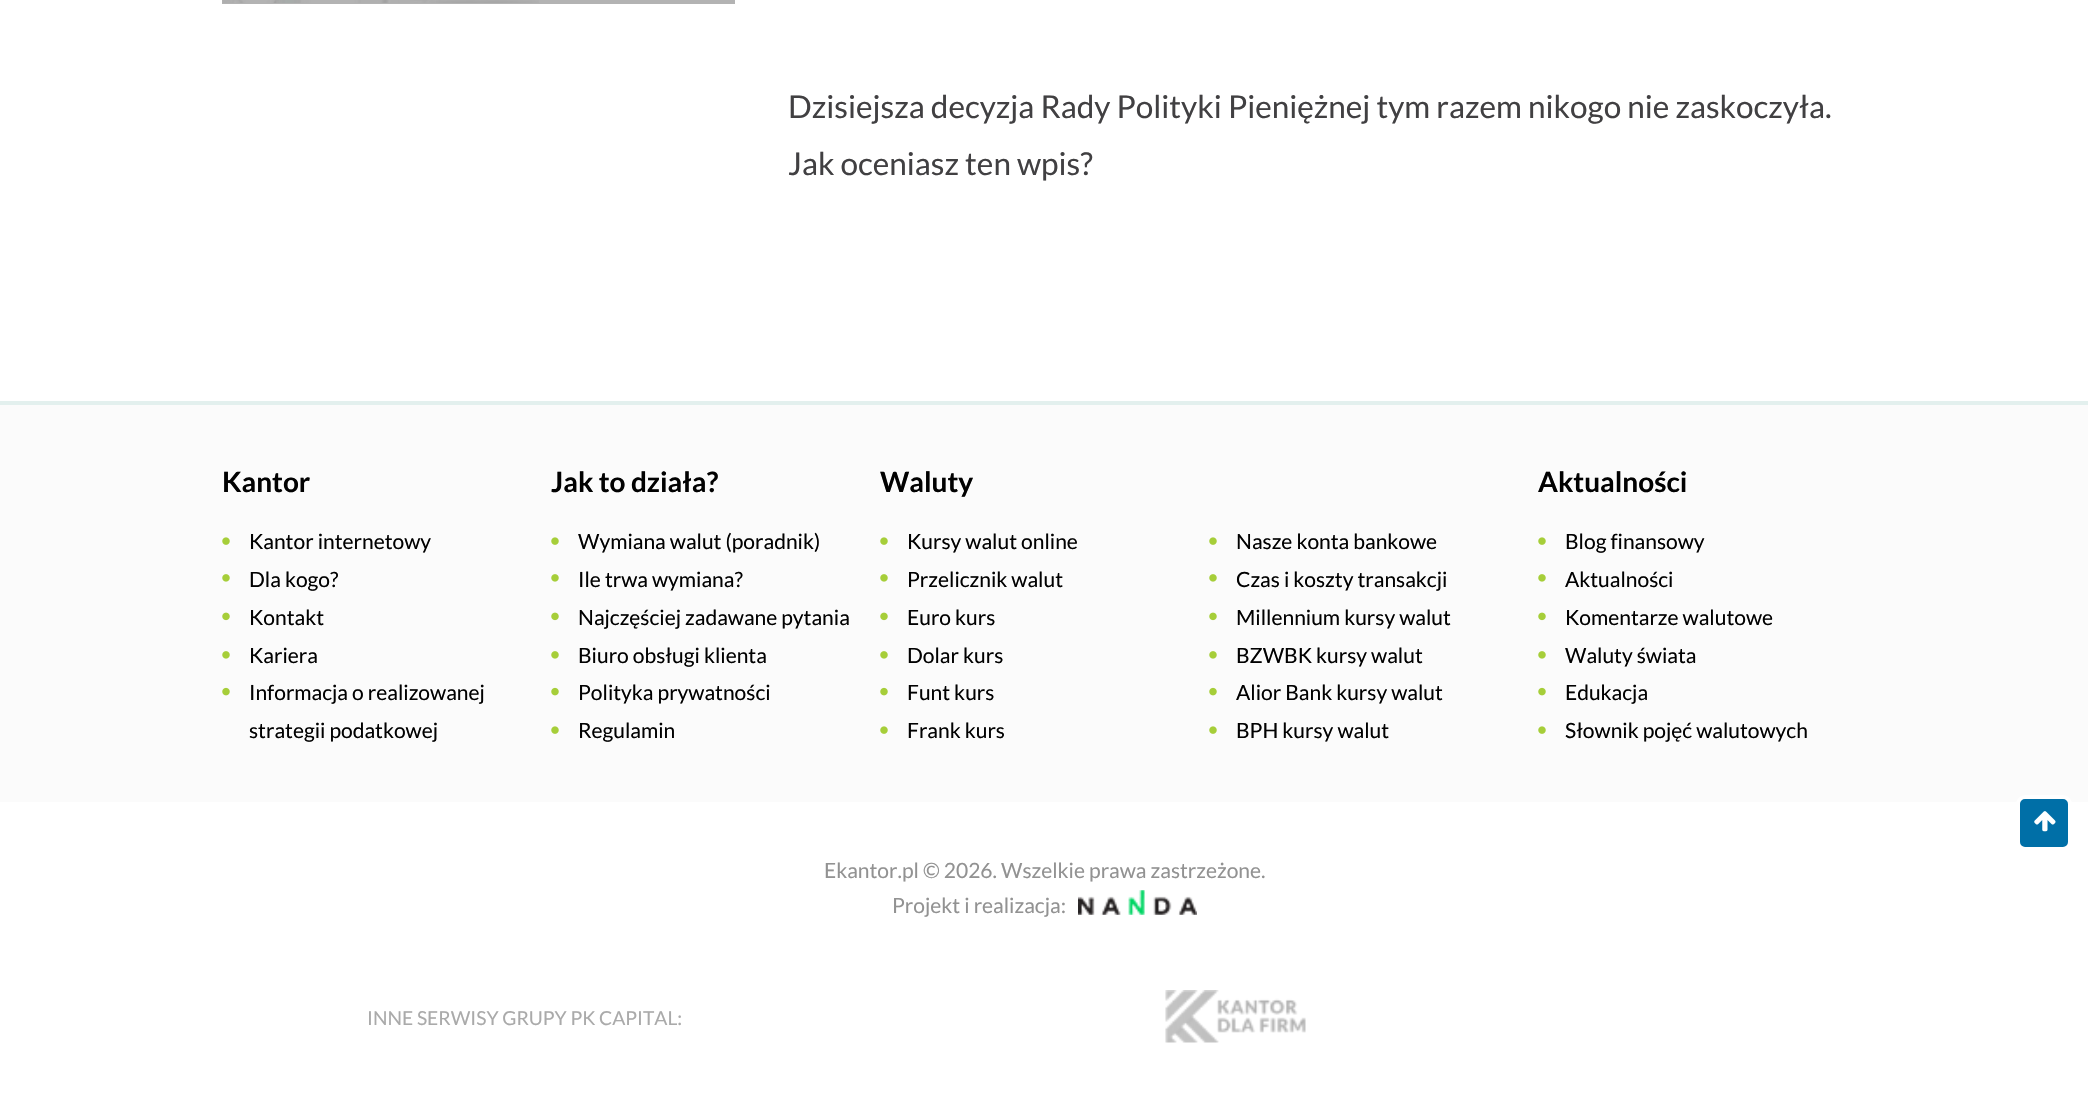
void draw(SkCanvas* canvas) {
	SkPaint paint;
	paint.setAntiAlias(true);
	canvas->clear(0xffffffff);
	paint.setColor(0xffb3b3b3);
	canvas->drawRect(SkRect::MakeXYWH(222, 0, 513, 4), paint);
	canvas->drawImageRect(SkImages::DeferredFromEncodedData(SkData::MakeFromFileName("img1.png")), SkRect::MakeXYWH(222, 0, 317, 3), SkSamplingOptions());
	SkFont f1(fontMgr->matchFamilyStyle("Lato", SkFontStyle::Normal()), 31.5);
	f1.setSubpixel(true);
	paint.setColor(0xff414042);
	canvas->drawString("Dzisiejsza decyzja Rady Polityki Pieniężnej tym razem nikogo nie zaskoczyła.", 788, 118, f1, paint);
	canvas->drawString("Jak oceniasz ten wpis?", 788, 175, f1, paint);
	paint.setColor(0xfffbfbfb);
	canvas->drawRect(SkRect::MakeXYWH(0, 405, 2088, 397), paint);
	paint.setColor(0xffe3f0ee);
	canvas->drawRect(SkRect::MakeXYWH(0, 401, 2088, 4), paint);
	SkFont f2(fontMgr->matchFamilyStyle("Lato", SkFontStyle::Bold()), 28);
	f2.setSubpixel(true);
	paint.setColor(0xff010101);
	canvas->drawString("Kantor", 222, 492, f2, paint);
	canvas->drawImageRect(SkImages::DeferredFromEncodedData(SkData::MakeFromFileName("img2.png")), SkRect::MakeXYWH(222, 537, 8, 8), SkSamplingOptions());
	SkFont f3(fontMgr->matchFamilyStyle("Lato", SkFontStyle::Normal()), 21);
	f3.setSubpixel(true);
	canvas->drawString("Kantor internetowy", 249, 549, f3, paint);
	canvas->drawImageRect(SkImages::DeferredFromEncodedData(SkData::MakeFromFileName("img3.png")), SkRect::MakeXYWH(222, 574, 8, 8), SkSamplingOptions());
	canvas->drawString("Dla kogo?", 249, 587, f3, paint);
	canvas->drawImageRect(SkImages::DeferredFromEncodedData(SkData::MakeFromFileName("img4.png")), SkRect::MakeXYWH(222, 612, 8, 9), SkSamplingOptions());
	canvas->drawString("Kontakt", 249, 625, f3, paint);
	canvas->drawImageRect(SkImages::DeferredFromEncodedData(SkData::MakeFromFileName("img3.png")), SkRect::MakeXYWH(222, 651, 8, 8), SkSamplingOptions());
	canvas->drawString("Kariera", 249, 663, f3, paint);
	canvas->drawImageRect(SkImages::DeferredFromEncodedData(SkData::MakeFromFileName("img5.png")), SkRect::MakeXYWH(222, 687, 8, 9), SkSamplingOptions());
	canvas->drawString("Informacja o realizowanej", 249, 700, f3, paint);
	canvas->drawString("strategii podatkowej", 249, 738, f3, paint);
	canvas->drawString("Jak to działa?", 551, 492, f2, paint);
	canvas->drawImageRect(SkImages::DeferredFromEncodedData(SkData::MakeFromFileName("img2.png")), SkRect::MakeXYWH(551, 537, 8, 8), SkSamplingOptions());
	canvas->drawString("Wymiana walut (poradnik)", 578, 549, f3, paint);
	canvas->drawImageRect(SkImages::DeferredFromEncodedData(SkData::MakeFromFileName("img3.png")), SkRect::MakeXYWH(551, 574, 8, 8), SkSamplingOptions());
	canvas->drawString("Ile trwa wymiana?", 578, 587, f3, paint);
	canvas->drawImageRect(SkImages::DeferredFromEncodedData(SkData::MakeFromFileName("img4.png")), SkRect::MakeXYWH(551, 612, 8, 9), SkSamplingOptions());
	canvas->drawString("Najczęściej zadawane pytania", 578, 625, f3, paint);
	canvas->drawImageRect(SkImages::DeferredFromEncodedData(SkData::MakeFromFileName("img3.png")), SkRect::MakeXYWH(551, 651, 8, 8), SkSamplingOptions());
	canvas->drawString("Biuro obsługi klienta", 578, 663, f3, paint);
	canvas->drawImageRect(SkImages::DeferredFromEncodedData(SkData::MakeFromFileName("img5.png")), SkRect::MakeXYWH(551, 687, 8, 9), SkSamplingOptions());
	canvas->drawString("Polityka prywatności", 578, 700, f3, paint);
	canvas->drawImageRect(SkImages::DeferredFromEncodedData(SkData::MakeFromFileName("img2.png")), SkRect::MakeXYWH(551, 726, 8, 8), SkSamplingOptions());
	canvas->drawString("Regulamin", 578, 738, f3, paint);
	canvas->drawString("Waluty", 880, 492, f2, paint);
	canvas->drawImageRect(SkImages::DeferredFromEncodedData(SkData::MakeFromFileName("img2.png")), SkRect::MakeXYWH(880, 537, 8, 8), SkSamplingOptions());
	canvas->drawString("Kursy walut online", 907, 549, f3, paint);
	canvas->drawImageRect(SkImages::DeferredFromEncodedData(SkData::MakeFromFileName("img3.png")), SkRect::MakeXYWH(880, 574, 8, 8), SkSamplingOptions());
	canvas->drawString("Przelicznik walut", 907, 587, f3, paint);
	canvas->drawImageRect(SkImages::DeferredFromEncodedData(SkData::MakeFromFileName("img4.png")), SkRect::MakeXYWH(880, 612, 8, 9), SkSamplingOptions());
	canvas->drawString("Euro kurs", 907, 625, f3, paint);
	canvas->drawImageRect(SkImages::DeferredFromEncodedData(SkData::MakeFromFileName("img3.png")), SkRect::MakeXYWH(880, 651, 8, 8), SkSamplingOptions());
	canvas->drawString("Dolar kurs", 907, 663, f3, paint);
	canvas->drawImageRect(SkImages::DeferredFromEncodedData(SkData::MakeFromFileName("img5.png")), SkRect::MakeXYWH(880, 687, 8, 9), SkSamplingOptions());
	canvas->drawString("Funt kurs", 907, 700, f3, paint);
	canvas->drawImageRect(SkImages::DeferredFromEncodedData(SkData::MakeFromFileName("img2.png")), SkRect::MakeXYWH(880, 726, 8, 8), SkSamplingOptions());
	canvas->drawString("Frank kurs", 907, 738, f3, paint);
	canvas->drawImageRect(SkImages::DeferredFromEncodedData(SkData::MakeFromFileName("img2.png")), SkRect::MakeXYWH(1209, 537, 8, 8), SkSamplingOptions());
	canvas->drawString("Nasze konta bankowe", 1236, 549, f3, paint);
	canvas->drawImageRect(SkImages::DeferredFromEncodedData(SkData::MakeFromFileName("img3.png")), SkRect::MakeXYWH(1209, 574, 8, 8), SkSamplingOptions());
	canvas->drawString("Czas i koszty transakcji", 1236, 587, f3, paint);
	canvas->drawImageRect(SkImages::DeferredFromEncodedData(SkData::MakeFromFileName("img4.png")), SkRect::MakeXYWH(1209, 612, 8, 9), SkSamplingOptions());
	canvas->drawString("Millennium kursy walut", 1236, 625, f3, paint);
	canvas->drawImageRect(SkImages::DeferredFromEncodedData(SkData::MakeFromFileName("img3.png")), SkRect::MakeXYWH(1209, 651, 8, 8), SkSamplingOptions());
	canvas->drawString("BZWBK kursy walut", 1236, 663, f3, paint);
	canvas->drawImageRect(SkImages::DeferredFromEncodedData(SkData::MakeFromFileName("img5.png")), SkRect::MakeXYWH(1209, 687, 8, 9), SkSamplingOptions());
	canvas->drawString("Alior Bank kursy walut", 1236, 700, f3, paint);
	canvas->drawImageRect(SkImages::DeferredFromEncodedData(SkData::MakeFromFileName("img2.png")), SkRect::MakeXYWH(1209, 726, 8, 8), SkSamplingOptions());
	canvas->drawString("BPH kursy walut", 1236, 738, f3, paint);
	canvas->drawString("Aktualności", 1538, 492, f2, paint);
	canvas->drawImageRect(SkImages::DeferredFromEncodedData(SkData::MakeFromFileName("img2.png")), SkRect::MakeXYWH(1538, 537, 8, 8), SkSamplingOptions());
	canvas->drawString("Blog finansowy", 1565, 549, f3, paint);
	canvas->drawImageRect(SkImages::DeferredFromEncodedData(SkData::MakeFromFileName("img3.png")), SkRect::MakeXYWH(1538, 574, 8, 8), SkSamplingOptions());
	canvas->drawString("Aktualności", 1565, 587, f3, paint);
	canvas->drawImageRect(SkImages::DeferredFromEncodedData(SkData::MakeFromFileName("img4.png")), SkRect::MakeXYWH(1538, 612, 8, 9), SkSamplingOptions());
	canvas->drawString("Komentarze walutowe", 1565, 625, f3, paint);
	canvas->drawImageRect(SkImages::DeferredFromEncodedData(SkData::MakeFromFileName("img3.png")), SkRect::MakeXYWH(1538, 651, 8, 8), SkSamplingOptions());
	canvas->drawString("Waluty świata", 1565, 663, f3, paint);
	canvas->drawImageRect(SkImages::DeferredFromEncodedData(SkData::MakeFromFileName("img5.png")), SkRect::MakeXYWH(1538, 687, 8, 9), SkSamplingOptions());
	canvas->drawString("Edukacja", 1565, 700, f3, paint);
	canvas->drawImageRect(SkImages::DeferredFromEncodedData(SkData::MakeFromFileName("img2.png")), SkRect::MakeXYWH(1538, 726, 8, 8), SkSamplingOptions());
	canvas->drawString("Słownik pojęć walutowych", 1565, 738, f3, paint);
	paint.setColor(0xff006fa7);
	canvas->drawRoundRect(SkRect::MakeXYWH(2018, 797, 52, 52), 7, 7, paint);
	paint.setStroke(true);
	paint.setStrokeWidth(4);
	paint.setColor(0xffffffff);
	canvas->drawRoundRect(SkRect::MakeXYWH(2018, 797, 52, 52), 7, 7, paint);
	canvas->drawImageRect(SkImages::DeferredFromEncodedData(SkData::MakeFromFileName("img6.png")), SkRect::MakeXYWH(2034, 811, 22, 21), SkSamplingOptions());
	paint.setStroke(false);
	paint.setColor(0xff929292);
	canvas->drawString("Ekantor.pl © 2026. Wszelkie prawa zastrzeżone.", 824, 878, f3, paint);
	canvas->drawString("Projekt i realizacja:", 892, 913, f3, paint);
	canvas->drawImageRect(SkImages::DeferredFromEncodedData(SkData::MakeFromFileName("img7.png")), SkRect::MakeXYWH(1078, 890, 119, 25), SkSamplingOptions());
	SkFont f4(fontMgr->matchFamilyStyle("Lato", SkFontStyle::Normal()), 19.25);
	f4.setSubpixel(true);
	paint.setColor(0xffaaaaaa);
	canvas->drawString("INNE SERWISY GRUPY PK CAPITAL:", 367, 1025, f4, paint);
	canvas->drawImageRect(SkImages::DeferredFromEncodedData(SkData::MakeFromFileName("img8.png")), SkRect::MakeXYWH(1165, 990, 141, 53), SkSamplingOptions());
}
